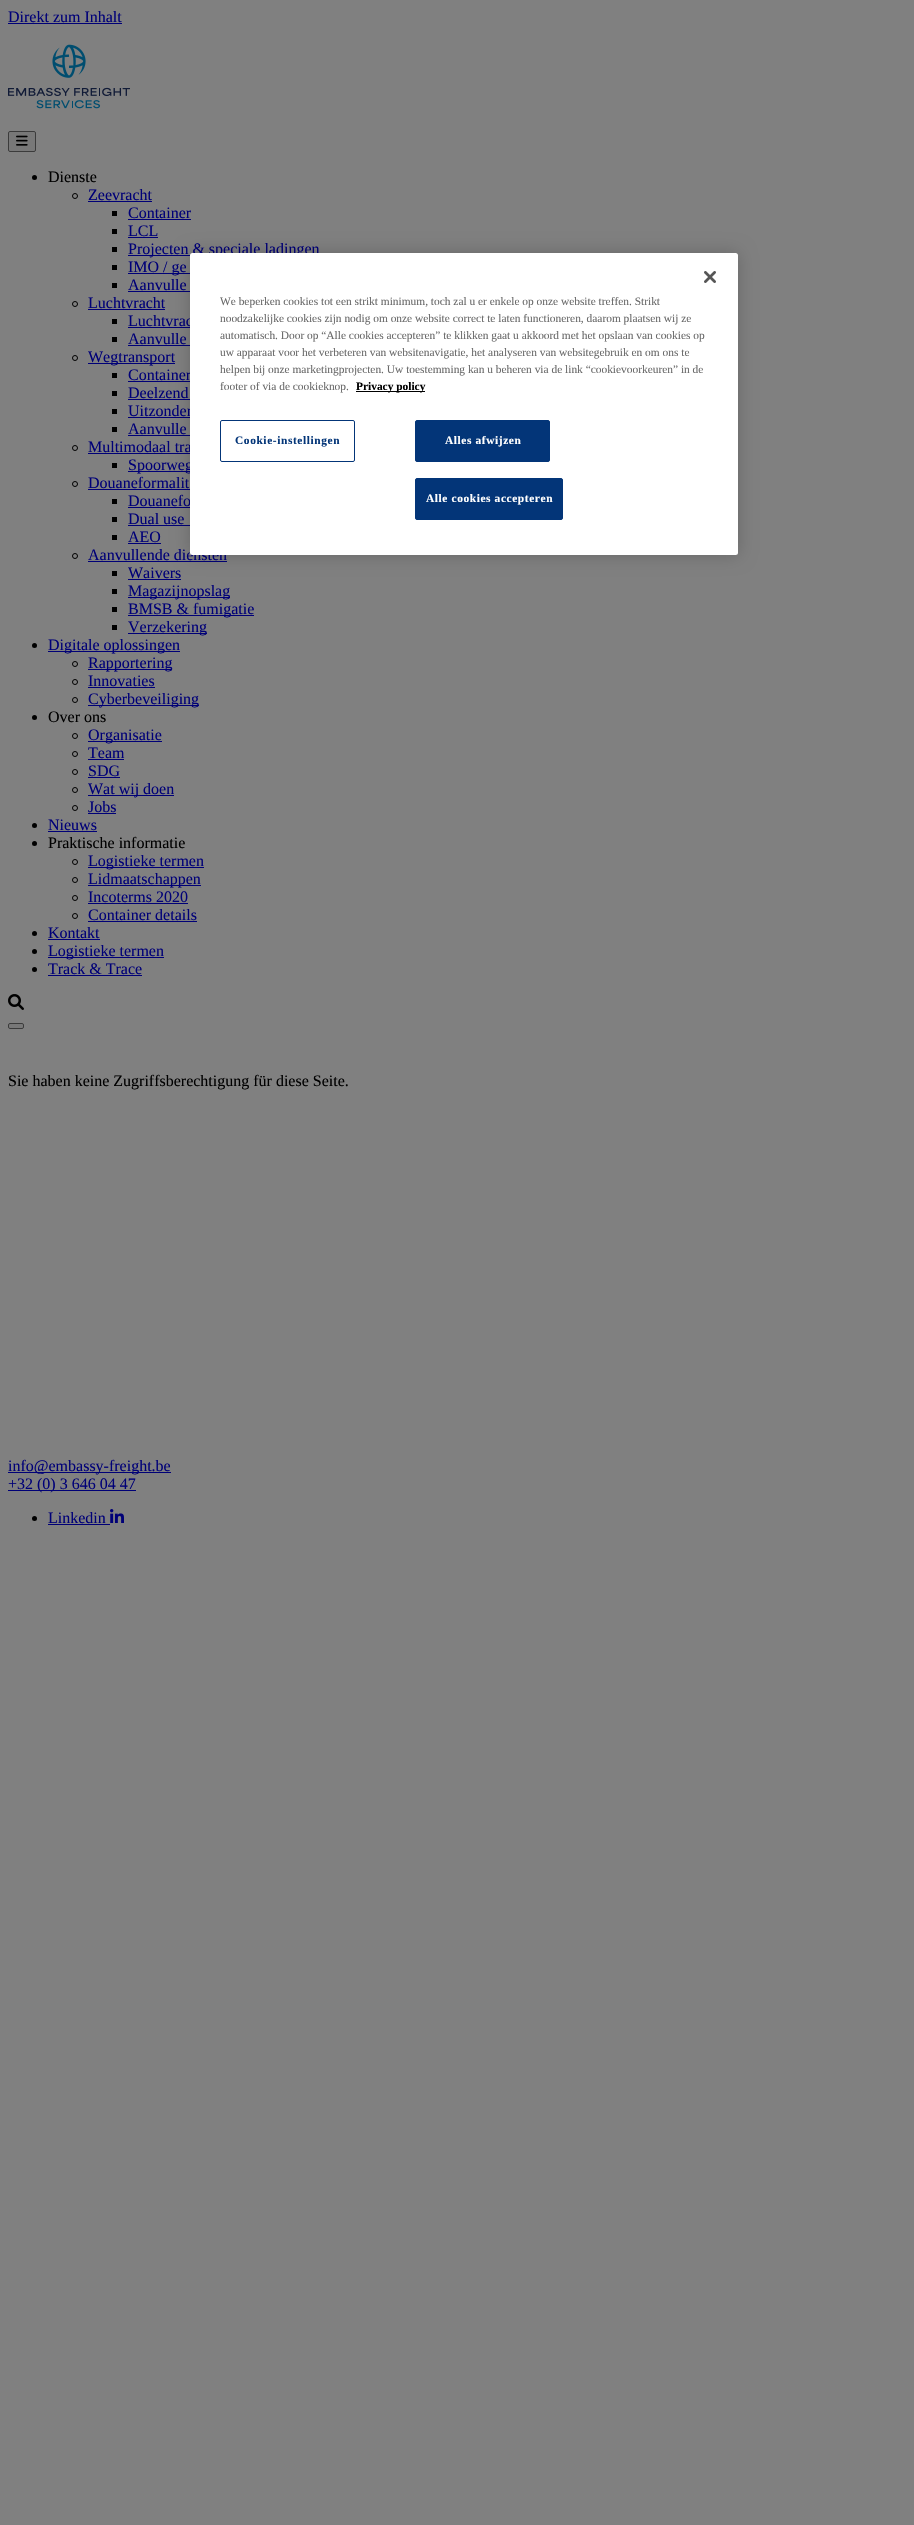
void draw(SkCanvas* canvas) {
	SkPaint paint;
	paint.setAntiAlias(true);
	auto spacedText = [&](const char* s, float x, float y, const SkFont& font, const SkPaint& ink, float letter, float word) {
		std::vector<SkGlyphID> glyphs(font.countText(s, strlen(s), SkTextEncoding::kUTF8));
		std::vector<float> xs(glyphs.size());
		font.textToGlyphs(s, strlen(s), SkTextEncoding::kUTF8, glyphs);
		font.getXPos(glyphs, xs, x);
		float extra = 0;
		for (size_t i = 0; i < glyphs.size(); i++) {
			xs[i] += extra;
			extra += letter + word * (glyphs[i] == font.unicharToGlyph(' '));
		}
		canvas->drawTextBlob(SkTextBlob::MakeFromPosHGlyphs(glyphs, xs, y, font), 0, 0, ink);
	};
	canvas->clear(0xff808080);
	SkFont f1(fontMgr->matchFamilyStyle("Liberation Serif", SkFontStyle::Normal()), 16);
	f1.setSubpixel(true);
	paint.setColor(0xff000077);
	canvas->drawString("Direkt zum Inhalt", 8, 22, f1, paint);
	canvas->drawRect(SkRect::MakeXYWH(8, 23, 114, 1), paint);
	canvas->drawImageRect(SkImages::DeferredFromEncodedData(SkData::MakeFromFileName("img1.png")), SkRect::MakeXYWH(8, 44, 122, 65), SkSamplingOptions());
	paint.setColor(0xff787878);
	canvas->drawRoundRect(SkRect::MakeXYWH(8.5, 131.5, 27, 20), 1.5, 1.5, paint);
	paint.setStroke(true);
	paint.setStrokeWidth(1);
	paint.setColor(0xff3b3b3b);
	canvas->drawRoundRect(SkRect::MakeXYWH(8.5, 131.5, 27, 20), 1.5, 1.5, paint);
	canvas->drawImageRect(SkImages::DeferredFromEncodedData(SkData::MakeFromFileName("img2.png")), SkRect::MakeXYWH(16, 135, 12, 11), SkSamplingOptions());
	paint.setStroke(false);
	paint.setColor(0xff000000);
	canvas->drawCircle(34.5, 177.5, 2.5, paint);
	canvas->drawString("Dienste", 48, 182, f1, paint);
	paint.setStroke(true);
	canvas->drawCircle(75, 196, 2.5, paint);
	paint.setStroke(false);
	paint.setColor(0xff000077);
	canvas->drawString("Zeevracht", 88, 200, f1, paint);
	canvas->drawRect(SkRect::MakeXYWH(88, 201, 64, 1), paint);
	paint.setColor(0xff000000);
	canvas->drawRect(SkRect::MakeXYWH(112, 211, 5, 5), paint);
	paint.setColor(0xff000077);
	canvas->drawString("Container", 128, 218, f1, paint);
	canvas->drawRect(SkRect::MakeXYWH(128, 219, 63, 1), paint);
	paint.setColor(0xff000000);
	canvas->drawRect(SkRect::MakeXYWH(112, 229, 5, 5), paint);
	paint.setColor(0xff000077);
	canvas->drawString("LCL", 128, 236, f1, paint);
	canvas->drawRect(SkRect::MakeXYWH(128, 237, 30, 1), paint);
	paint.setColor(0xff000000);
	canvas->drawRect(SkRect::MakeXYWH(112, 247, 5, 5), paint);
	paint.setColor(0xff000077);
	canvas->drawRect(SkRect::MakeXYWH(128, 255, 63, 1), paint);
	canvas->drawString("Projecten & speciale ladingen", 128, 254, f1, paint);
	paint.setColor(0xff000000);
	canvas->drawRect(SkRect::MakeXYWH(112, 265, 5, 5), paint);
	paint.setColor(0xff000077);
	canvas->drawRect(SkRect::MakeXYWH(128, 273, 62, 1), paint);
	canvas->drawString("IMO / ge", 128, 272, f1, paint);
	paint.setColor(0xff000000);
	canvas->drawRect(SkRect::MakeXYWH(112, 283, 5, 5), paint);
	paint.setColor(0xff000077);
	canvas->drawString("Aanvulle", 128, 290, f1, paint);
	canvas->drawRect(SkRect::MakeXYWH(128, 291, 62, 1), paint);
	paint.setStroke(true);
	paint.setColor(0xff000000);
	canvas->drawCircle(75, 304, 2.5, paint);
	paint.setStroke(false);
	paint.setColor(0xff000077);
	canvas->drawString("Luchtvracht", 88, 308, f1, paint);
	canvas->drawRect(SkRect::MakeXYWH(88, 309, 77, 1), paint);
	paint.setColor(0xff000000);
	canvas->drawRect(SkRect::MakeXYWH(112, 319, 5, 5), paint);
	paint.setColor(0xff000077);
	canvas->drawString("Luchtvrac", 128, 326, f1, paint);
	canvas->drawRect(SkRect::MakeXYWH(128, 327, 62, 1), paint);
	paint.setColor(0xff000000);
	canvas->drawRect(SkRect::MakeXYWH(112, 337, 5, 5), paint);
	paint.setColor(0xff000077);
	canvas->drawString("Aanvulle", 128, 344, f1, paint);
	canvas->drawRect(SkRect::MakeXYWH(128, 345, 62, 1), paint);
	paint.setStroke(true);
	paint.setColor(0xff000000);
	canvas->drawCircle(75, 358, 2.5, paint);
	paint.setStroke(false);
	paint.setColor(0xff000077);
	canvas->drawRect(SkRect::MakeXYWH(88, 363, 87, 1), paint);
	canvas->drawString("Wegtransport", 88, 362, f1, paint);
	paint.setColor(0xff000000);
	canvas->drawRect(SkRect::MakeXYWH(112, 373, 5, 5), paint);
	paint.setColor(0xff000077);
	canvas->drawString("Container", 128, 380, f1, paint);
	canvas->drawRect(SkRect::MakeXYWH(128, 381, 62, 1), paint);
	paint.setColor(0xff000000);
	canvas->drawRect(SkRect::MakeXYWH(112, 391, 5, 5), paint);
	paint.setColor(0xff000077);
	canvas->drawString("Deelzend", 128, 398, f1, paint);
	canvas->drawRect(SkRect::MakeXYWH(128, 399, 62, 1), paint);
	paint.setColor(0xff000000);
	canvas->drawRect(SkRect::MakeXYWH(112, 409, 5, 5), paint);
	paint.setColor(0xff000077);
	canvas->drawString("Uitzonder", 128, 416, f1, paint);
	canvas->drawRect(SkRect::MakeXYWH(128, 417, 62, 1), paint);
	paint.setColor(0xff000000);
	canvas->drawRect(SkRect::MakeXYWH(112, 427, 5, 5), paint);
	paint.setColor(0xff000077);
	canvas->drawString("Aanvulle", 128, 434, f1, paint);
	canvas->drawRect(SkRect::MakeXYWH(128, 435, 62, 1), paint);
	paint.setStroke(true);
	paint.setColor(0xff000000);
	canvas->drawCircle(75, 448, 2.5, paint);
	paint.setStroke(false);
	paint.setColor(0xff000077);
	canvas->drawString("Multimodaal tra", 88, 452, f1, paint);
	canvas->drawRect(SkRect::MakeXYWH(88, 453, 102, 1), paint);
	paint.setColor(0xff000000);
	canvas->drawRect(SkRect::MakeXYWH(112, 463, 5, 5), paint);
	paint.setColor(0xff000077);
	canvas->drawRect(SkRect::MakeXYWH(128, 471, 62, 1), paint);
	canvas->drawString("Spoorweg", 128, 470, f1, paint);
	paint.setStroke(true);
	paint.setColor(0xff000000);
	canvas->drawCircle(75, 484, 2.5, paint);
	paint.setStroke(false);
	paint.setColor(0xff000077);
	canvas->drawString("Douaneformalit", 88, 488, f1, paint);
	canvas->drawRect(SkRect::MakeXYWH(88, 489, 102, 1), paint);
	paint.setColor(0xff000000);
	canvas->drawRect(SkRect::MakeXYWH(112, 499, 5, 5), paint);
	paint.setColor(0xff000077);
	canvas->drawString("Douanefo", 128, 506, f1, paint);
	canvas->drawRect(SkRect::MakeXYWH(128, 507, 62, 1), paint);
	paint.setColor(0xff000000);
	canvas->drawRect(SkRect::MakeXYWH(112, 517, 5, 5), paint);
	paint.setColor(0xff000077);
	canvas->drawString("Dual use", 128, 524, f1, paint);
	canvas->drawRect(SkRect::MakeXYWH(128, 525, 62, 1), paint);
	paint.setColor(0xff000000);
	canvas->drawRect(SkRect::MakeXYWH(112, 535, 5, 5), paint);
	paint.setColor(0xff000077);
	canvas->drawString("AEO", 128, 542, f1, paint);
	canvas->drawRect(SkRect::MakeXYWH(128, 543, 33, 1), paint);
	paint.setStroke(true);
	paint.setColor(0xff000000);
	canvas->drawCircle(75, 556, 2.5, paint);
	paint.setStroke(false);
	paint.setColor(0xff000077);
	canvas->drawString("Aanvullende diensten", 88, 560, f1, paint);
	canvas->drawRect(SkRect::MakeXYWH(88, 561, 139, 1), paint);
	paint.setColor(0xff000000);
	canvas->drawRect(SkRect::MakeXYWH(112, 571, 5, 5), paint);
	paint.setColor(0xff000077);
	canvas->drawString("Waivers", 128, 578, f1, paint);
	canvas->drawRect(SkRect::MakeXYWH(128, 579, 53, 1), paint);
	paint.setColor(0xff000000);
	canvas->drawRect(SkRect::MakeXYWH(112, 589, 5, 5), paint);
	paint.setColor(0xff000077);
	canvas->drawRect(SkRect::MakeXYWH(128, 597, 102, 1), paint);
	canvas->drawString("Magazijnopslag", 128, 596, f1, paint);
	paint.setColor(0xff000000);
	canvas->drawRect(SkRect::MakeXYWH(112, 607, 5, 5), paint);
	paint.setColor(0xff000077);
	canvas->drawRect(SkRect::MakeXYWH(128, 615, 126, 1), paint);
	canvas->drawString("BMSB & fumigatie", 128, 614, f1, paint);
	paint.setColor(0xff000000);
	canvas->drawRect(SkRect::MakeXYWH(112, 625, 5, 5), paint);
	paint.setColor(0xff000077);
	canvas->drawRect(SkRect::MakeXYWH(128, 633, 79, 1), paint);
	canvas->drawString("Verzekering", 128, 632, f1, paint);
	paint.setColor(0xff000000);
	canvas->drawCircle(34.5, 645.5, 2.5, paint);
	paint.setColor(0xff000077);
	canvas->drawRect(SkRect::MakeXYWH(48, 651, 132, 1), paint);
	canvas->drawString("Digitale oplossingen", 48, 650, f1, paint);
	paint.setStroke(true);
	paint.setColor(0xff000000);
	canvas->drawCircle(75, 664, 2.5, paint);
	paint.setStroke(false);
	paint.setColor(0xff000077);
	canvas->drawRect(SkRect::MakeXYWH(88, 669, 84, 1), paint);
	canvas->drawString("Rapportering", 88, 668, f1, paint);
	paint.setStroke(true);
	paint.setColor(0xff000000);
	canvas->drawCircle(75, 682, 2.5, paint);
	paint.setStroke(false);
	paint.setColor(0xff000077);
	canvas->drawString("Innovaties", 88, 686, f1, paint);
	canvas->drawRect(SkRect::MakeXYWH(88, 687, 67, 1), paint);
	paint.setStroke(true);
	paint.setColor(0xff000000);
	canvas->drawCircle(75, 700, 2.5, paint);
	paint.setStroke(false);
	paint.setColor(0xff000077);
	canvas->drawRect(SkRect::MakeXYWH(88, 705, 111, 1), paint);
	canvas->drawString("Cyberbeveiliging", 88, 704, f1, paint);
	paint.setColor(0xff000000);
	canvas->drawCircle(34.5, 717.5, 2.5, paint);
	canvas->drawString("Over ons", 48, 722, f1, paint);
	paint.setStroke(true);
	canvas->drawCircle(75, 736, 2.5, paint);
	paint.setStroke(false);
	paint.setColor(0xff000077);
	canvas->drawRect(SkRect::MakeXYWH(88, 741, 74, 1), paint);
	canvas->drawString("Organisatie", 88, 740, f1, paint);
	paint.setStroke(true);
	paint.setColor(0xff000000);
	canvas->drawCircle(75, 754, 2.5, paint);
	paint.setStroke(false);
	paint.setColor(0xff000077);
	canvas->drawString("Team", 88, 758, f1, paint);
	canvas->drawRect(SkRect::MakeXYWH(88, 759, 36, 1), paint);
	paint.setStroke(true);
	paint.setColor(0xff000000);
	canvas->drawCircle(75, 772, 2.5, paint);
	paint.setStroke(false);
	paint.setColor(0xff000077);
	canvas->drawString("SDG", 88, 776, f1, paint);
	canvas->drawRect(SkRect::MakeXYWH(88, 777, 32, 1), paint);
	paint.setStroke(true);
	paint.setColor(0xff000000);
	canvas->drawCircle(75, 790, 2.5, paint);
	paint.setStroke(false);
	paint.setColor(0xff000077);
	canvas->drawRect(SkRect::MakeXYWH(88, 795, 86, 1), paint);
	canvas->drawString("Wat wij doen", 88, 794, f1, paint);
	paint.setStroke(true);
	paint.setColor(0xff000000);
	canvas->drawCircle(75, 808, 2.5, paint);
	paint.setStroke(false);
	paint.setColor(0xff000077);
	canvas->drawString("Jobs", 88, 812, f1, paint);
	canvas->drawRect(SkRect::MakeXYWH(88, 813, 28, 1), paint);
	paint.setColor(0xff000000);
	canvas->drawCircle(34.5, 825.5, 2.5, paint);
	paint.setColor(0xff000077);
	canvas->drawString("Nieuws", 48, 830, f1, paint);
	canvas->drawRect(SkRect::MakeXYWH(48, 831, 49, 1), paint);
	paint.setColor(0xff000000);
	canvas->drawCircle(34.5, 843.5, 2.5, paint);
	canvas->drawString("Praktische informatie", 48, 848, f1, paint);
	paint.setStroke(true);
	canvas->drawCircle(75, 862, 2.5, paint);
	paint.setStroke(false);
	paint.setColor(0xff000077);
	canvas->drawRect(SkRect::MakeXYWH(88, 867, 116, 1), paint);
	canvas->drawString("Logistieke termen", 88, 866, f1, paint);
	paint.setStroke(true);
	paint.setColor(0xff000000);
	canvas->drawCircle(75, 880, 2.5, paint);
	paint.setStroke(false);
	paint.setColor(0xff000077);
	canvas->drawRect(SkRect::MakeXYWH(88, 885, 113, 1), paint);
	canvas->drawString("Lidmaatschappen", 88, 884, f1, paint);
	paint.setStroke(true);
	paint.setColor(0xff000000);
	canvas->drawCircle(75, 898, 2.5, paint);
	paint.setStroke(false);
	paint.setColor(0xff000077);
	canvas->drawString("Incoterms 2020", 88, 902, f1, paint);
	canvas->drawRect(SkRect::MakeXYWH(88, 903, 100, 1), paint);
	paint.setStroke(true);
	paint.setColor(0xff000000);
	canvas->drawCircle(75, 916, 2.5, paint);
	paint.setStroke(false);
	paint.setColor(0xff000077);
	canvas->drawString("Container details", 88, 920, f1, paint);
	canvas->drawRect(SkRect::MakeXYWH(88, 921, 109, 1), paint);
	paint.setColor(0xff000000);
	canvas->drawCircle(34.5, 933.5, 2.5, paint);
	paint.setColor(0xff000077);
	canvas->drawString("Kontakt", 48, 938, f1, paint);
	canvas->drawRect(SkRect::MakeXYWH(48, 939, 52, 1), paint);
	paint.setColor(0xff000000);
	canvas->drawCircle(34.5, 951.5, 2.5, paint);
	paint.setColor(0xff000077);
	canvas->drawRect(SkRect::MakeXYWH(48, 957, 116, 1), paint);
	canvas->drawString("Logistieke termen", 48, 956, f1, paint);
	paint.setColor(0xff000000);
	canvas->drawCircle(34.5, 969.5, 2.5, paint);
	paint.setColor(0xff000077);
	canvas->drawString("Track & Trace", 48, 974, f1, paint);
	canvas->drawRect(SkRect::MakeXYWH(48, 975, 94, 1), paint);
	canvas->drawImageRect(SkImages::DeferredFromEncodedData(SkData::MakeFromFileName("img3.png")), SkRect::MakeXYWH(8, 994, 16, 16), SkSamplingOptions());
	paint.setColor(0xff787878);
	canvas->drawRoundRect(SkRect::MakeXYWH(8.5, 1023.5, 15, 5), 1.5, 1.5, paint);
	paint.setStroke(true);
	paint.setColor(0xff3b3b3b);
	canvas->drawRoundRect(SkRect::MakeXYWH(8.5, 1023.5, 15, 5), 1.5, 1.5, paint);
	paint.setStroke(false);
	paint.setColor(0xff000000);
	canvas->drawString("Sie haben keine Zugriffsberechtigung für diese Seite.", 8, 1086, f1, paint);
	paint.setColor(0xff000077);
	canvas->drawRect(SkRect::MakeXYWH(8, 1472, 163, 1), paint);
	canvas->drawString("info@embassy-freight.be", 8, 1471, f1, paint);
	canvas->drawRect(SkRect::MakeXYWH(8, 1490, 128, 1), paint);
	canvas->drawString("+32 (0) 3 646 04 47", 8, 1489, f1, paint);
	paint.setColor(0xff000000);
	canvas->drawCircle(34.5, 1518.5, 2.5, paint);
	paint.setColor(0xff000077);
	canvas->drawString("Linkedin", 48, 1523, f1, paint);
	canvas->drawRect(SkRect::MakeXYWH(48, 1524, 62, 1), paint);
	canvas->drawImageRect(SkImages::DeferredFromEncodedData(SkData::MakeFromFileName("img4.png")), SkRect::MakeXYWH(110, 1509, 14, 14), SkSamplingOptions());
	paint.setColor(0x33000000);
	paint.setMaskFilter(SkMaskFilter::MakeBlur(kNormal_SkBlurStyle, 9));
	canvas->drawRoundRect(SkRect::MakeXYWH(190, 253, 548, 302), 2.5, 2.5, paint);
	paint.setMaskFilter(nullptr);
	paint.setColor(0xffffffff);
	canvas->drawRoundRect(SkRect::MakeXYWH(190, 253, 548, 302), 2.5, 2.5, paint);
	canvas->drawImageRect(SkImages::DeferredFromEncodedData(SkData::MakeFromFileName("img5.png")), SkRect::MakeXYWH(704, 271, 12, 12), SkSamplingOptions());
	SkFont f2(fontMgr->matchFamilyStyle("Liberation Serif", SkFontStyle::Normal()), 11.4);
	f2.setSubpixel(true);
	paint.setColor(0xff696969);
	canvas->drawString("We beperken cookies tot een strikt minimum, toch zal u er enkele op onze website treffen. Strikt", 220, 305, f2, paint);
	canvas->drawString("noodzakelijke cookies zijn nodig om onze website correct te laten functioneren, daarom plaatsen wij ze", 220, 322, f2, paint);
	canvas->drawString("automatisch. Door op “Alle cookies accepteren” te klikken gaat u akkoord met het opslaan van cookies op", 220, 339, f2, paint);
	canvas->drawString("uw apparaat voor het verbeteren van websitenavigatie, het analyseren van websitegebruik en om ons te", 220, 356, f2, paint);
	canvas->drawString("helpen bij onze marketingprojecten. Uw toestemming kan u beheren via de link “cookievoorkeuren” in de", 220, 373, f2, paint);
	canvas->drawString("footer of via de cookieknop.", 220, 390, f2, paint);
	paint.setColor(0xff000000);
	canvas->drawRect(SkRect::MakeXYWH(356, 391, 69, 1), paint);
	SkFont f3(fontMgr->matchFamilyStyle("Liberation Serif", SkFontStyle::Bold()), 11.4);
	f3.setSubpixel(true);
	canvas->drawString("Privacy policy", 356, 390, f3, paint);
	paint.setStroke(true);
	paint.setColor(0xff033578);
	canvas->drawRoundRect(SkRect::MakeXYWH(220.5, 420.5, 134, 41), 1.5, 1.5, paint);
	paint.setStroke(false);
	spacedText("Cookie-instellingen", 235, 444, f3, paint, 0.6, 0);
	canvas->drawRoundRect(SkRect::MakeXYWH(415.5, 420.5, 134, 41), 1.5, 1.5, paint);
	paint.setStroke(true);
	canvas->drawRoundRect(SkRect::MakeXYWH(415.5, 420.5, 134, 41), 1.5, 1.5, paint);
	paint.setStroke(false);
	paint.setColor(0xffffffff);
	spacedText("Alles afwijzen", 445, 444, f3, paint, 0.6, 0);
	paint.setColor(0xff033578);
	canvas->drawRoundRect(SkRect::MakeXYWH(415.5, 478.5, 147, 41), 1.5, 1.5, paint);
	paint.setStroke(true);
	canvas->drawRoundRect(SkRect::MakeXYWH(415.5, 478.5, 147, 41), 1.5, 1.5, paint);
	paint.setStroke(false);
	paint.setColor(0xffffffff);
	spacedText("Alle cookies accepteren", 426, 502, f3, paint, 0.6, 0);
}
